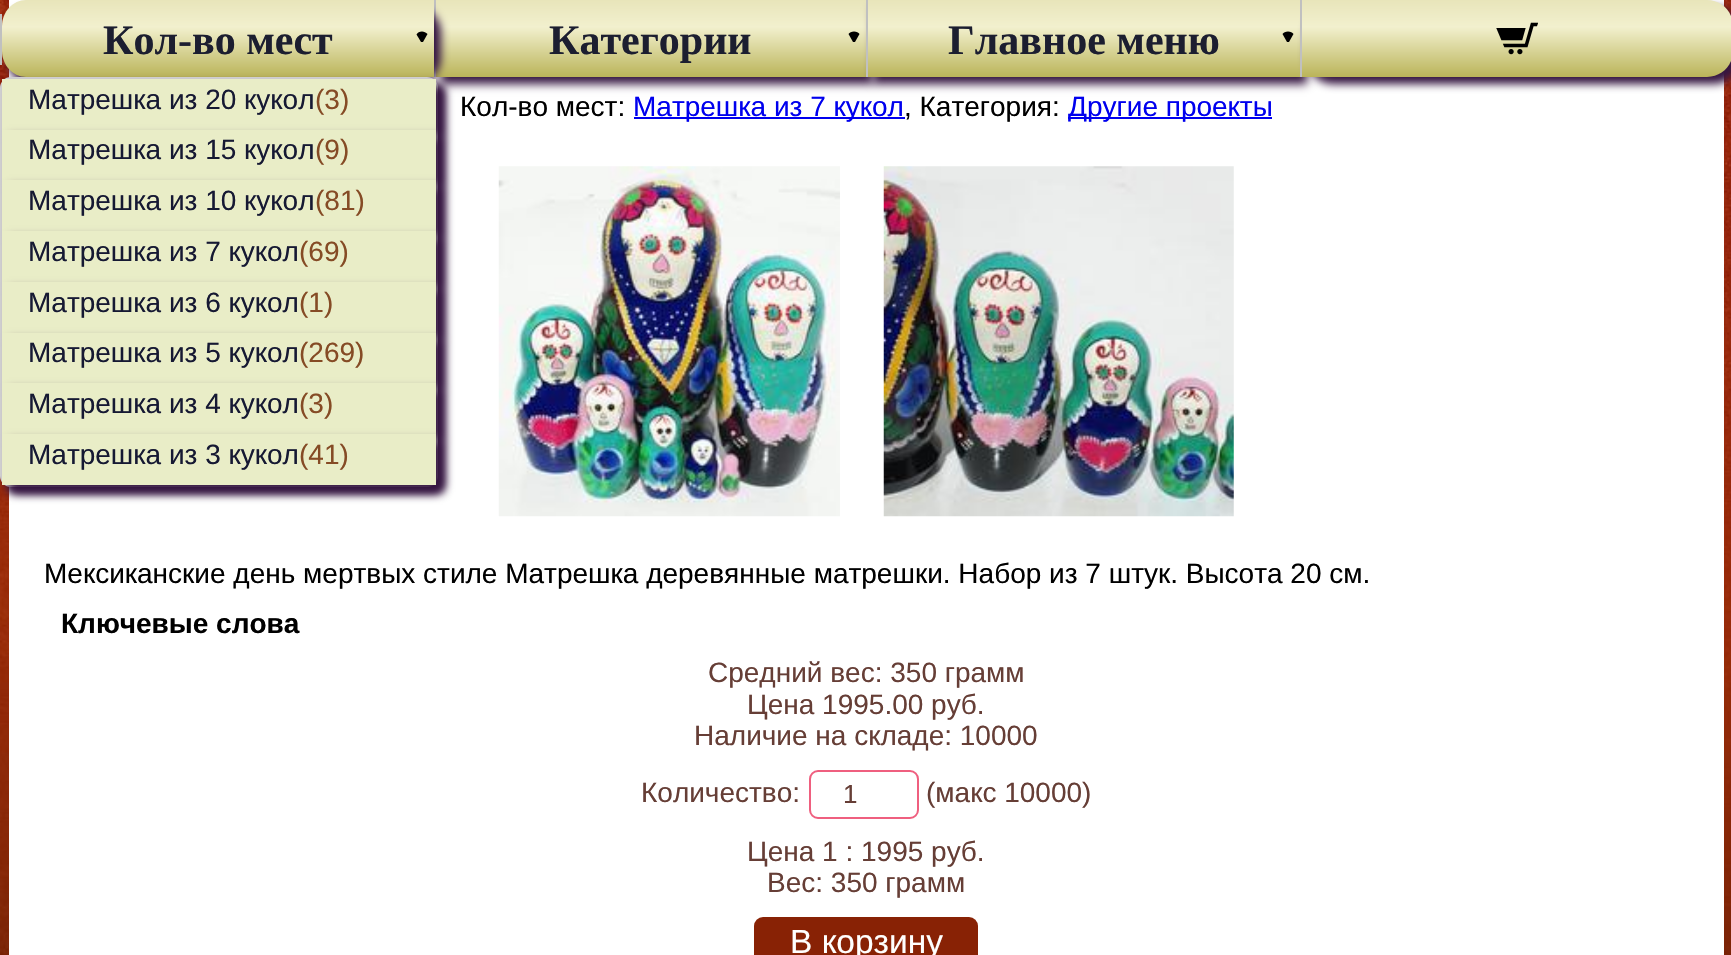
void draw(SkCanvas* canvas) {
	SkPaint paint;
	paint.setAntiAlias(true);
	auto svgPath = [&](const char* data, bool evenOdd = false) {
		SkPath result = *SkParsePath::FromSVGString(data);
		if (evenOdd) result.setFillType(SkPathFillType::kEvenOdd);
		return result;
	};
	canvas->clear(0xffffffff);
	canvas->drawImageRect(SkImages::DeferredFromEncodedData(SkData::MakeFromFileName("img1.png")), SkRect::MakeXYWH(0, 0, 1731, 955), SkSamplingOptions());
	paint.setColor(0xffffffff);
	canvas->drawRect(SkRect::MakeXYWH(9, 0, 1715, 955), paint);
	paint.setColor(0xff341440);
	paint.setMaskFilter(SkMaskFilter::MakeBlur(kNormal_SkBlurStyle, 4.5));
	canvas->drawRect(SkRect::MakeXYWH(441, 7, 432, 77), paint);
	paint.setMaskFilter(nullptr);
	{
		const SkColor colors[] = {0xffe8e5ba, 0xfff2f0ce, 0xffbab459};
		const float stops[] = {0, 0.35, 1};
		const SkPoint ends[] = {{651, 0}, {651, 77}};
		paint.setShader(SkGradientShader::MakeLinear(ends, colors, stops, 3, SkTileMode::kClamp));
		paint.setAlpha(255);
	}
	canvas->drawRect(SkRect::MakeXYWH(436, 0, 430, 77), paint);
	paint.setShader(nullptr);
	paint.setColor(0xffc0c0c0);
	canvas->drawRect(SkRect::MakeXYWH(434, 0, 2, 77), paint);
	paint.setColor(0xff341440);
	paint.setMaskFilter(SkMaskFilter::MakeBlur(kNormal_SkBlurStyle, 4.5));
	canvas->drawRoundRect(SkRect::MakeXYWH(7, 7, 434, 77), 26, 26, paint);
	paint.setMaskFilter(nullptr);
	{
		const SkColor colors[] = {0xffe8e5ba, 0xfff2f0ce, 0xffbab459};
		const float stops[] = {0, 0.35, 1};
		const SkPoint ends[] = {{218, 0}, {218, 77}};
		paint.setShader(SkGradientShader::MakeLinear(ends, colors, stops, 3, SkTileMode::kClamp));
		paint.setAlpha(255);
	}
	canvas->drawPath(svgPath("M26 0H434V77H26C13 77 2 65 2 51V26C2 12 13 0 26 0Z"), paint);
	paint.setShader(nullptr);
	paint.setColor(0xffc0c0c0);
	canvas->drawRect(SkRect::MakeXYWH(0, 14, 2, 51), paint);
	SkFont f1(fontMgr->matchFamilyStyle("Liberation Serif", SkFontStyle::Bold()), 42);
	f1.setSubpixel(true);
	paint.setColor(0xff1c1e30);
	canvas->drawString("Кол-во мест", 103, 54, f1, paint);
	paint.setColor(0xff000000);
	canvas->drawPath(svgPath("M422 31.5C424 31.5 426 32.5 427.5 34L423 42H421L416.5 34.5C417.5 32.5 419.5 31.5 422 31.5Z"), paint);
	paint.setColor(0xff341440);
	paint.setMaskFilter(SkMaskFilter::MakeBlur(kNormal_SkBlurStyle, 4.5));
	canvas->drawRoundRect(SkRect::MakeXYWH(7, 84, 438, 410), 11, 11, paint);
	paint.setMaskFilter(nullptr);
	paint.setStroke(true);
	paint.setStrokeWidth(2);
	paint.setColor(0xffd4d4d4);
	canvas->drawRoundRect(SkRect::MakeXYWH(1, 78, 436, 408), 10, 10, paint);
	paint.setStroke(false);
	paint.setColor(0xff341440);
	paint.setMaskFilter(SkMaskFilter::MakeBlur(kNormal_SkBlurStyle, 4.5));
	canvas->drawRect(SkRect::MakeXYWH(9, 86, 434, 51), paint);
	paint.setMaskFilter(nullptr);
	paint.setColor(0xffe9edc7);
	canvas->drawRect(SkRect::MakeXYWH(2, 79, 434, 51), paint);
	SkFont f2(fontMgr->matchFamilyStyle("Liberation Sans", SkFontStyle::Normal()), 28);
	f2.setSubpixel(true);
	paint.setColor(0xff161933);
	canvas->drawString("Матрешка из 20 кукол", 28, 109, f2, paint);
	paint.setColor(0xff854b25);
	canvas->drawString("(3)", 315, 109, f2, paint);
	paint.setColor(0xff341440);
	paint.setMaskFilter(SkMaskFilter::MakeBlur(kNormal_SkBlurStyle, 4.5));
	canvas->drawRect(SkRect::MakeXYWH(9, 137, 434, 50), paint);
	paint.setMaskFilter(nullptr);
	paint.setColor(0xffe9edc7);
	canvas->drawRect(SkRect::MakeXYWH(2, 130, 434, 50), paint);
	paint.setColor(0xff161933);
	canvas->drawString("Матрешка из 15 кукол", 28, 159, f2, paint);
	paint.setColor(0xff854b25);
	canvas->drawString("(9)", 315, 159, f2, paint);
	paint.setColor(0xff341440);
	paint.setMaskFilter(SkMaskFilter::MakeBlur(kNormal_SkBlurStyle, 4.5));
	canvas->drawRect(SkRect::MakeXYWH(9, 187, 434, 51), paint);
	paint.setMaskFilter(nullptr);
	paint.setColor(0xffe9edc7);
	canvas->drawRect(SkRect::MakeXYWH(2, 180, 434, 51), paint);
	paint.setColor(0xff161933);
	canvas->drawString("Матрешка из 10 кукол", 28, 210, f2, paint);
	paint.setColor(0xff854b25);
	canvas->drawString("(81)", 315, 210, f2, paint);
	paint.setColor(0xff341440);
	paint.setMaskFilter(SkMaskFilter::MakeBlur(kNormal_SkBlurStyle, 4.5));
	canvas->drawRect(SkRect::MakeXYWH(9, 238, 434, 51), paint);
	paint.setMaskFilter(nullptr);
	paint.setColor(0xffe9edc7);
	canvas->drawRect(SkRect::MakeXYWH(2, 231, 434, 51), paint);
	paint.setColor(0xff161933);
	canvas->drawString("Матрешка из 7 кукол", 28, 261, f2, paint);
	paint.setColor(0xff854b25);
	canvas->drawString("(69)", 299, 261, f2, paint);
	paint.setColor(0xff341440);
	paint.setMaskFilter(SkMaskFilter::MakeBlur(kNormal_SkBlurStyle, 4.5));
	canvas->drawRect(SkRect::MakeXYWH(9, 289, 434, 51), paint);
	paint.setMaskFilter(nullptr);
	paint.setColor(0xffe9edc7);
	canvas->drawRect(SkRect::MakeXYWH(2, 282, 434, 51), paint);
	paint.setColor(0xff161933);
	canvas->drawString("Матрешка из 6 кукол", 28, 312, f2, paint);
	paint.setColor(0xff854b25);
	canvas->drawString("(1)", 299, 312, f2, paint);
	paint.setColor(0xff341440);
	paint.setMaskFilter(SkMaskFilter::MakeBlur(kNormal_SkBlurStyle, 4.5));
	canvas->drawRect(SkRect::MakeXYWH(9, 340, 434, 50), paint);
	paint.setMaskFilter(nullptr);
	paint.setColor(0xffe9edc7);
	canvas->drawRect(SkRect::MakeXYWH(2, 333, 434, 50), paint);
	paint.setColor(0xff161933);
	canvas->drawString("Матрешка из 5 кукол", 28, 362, f2, paint);
	paint.setColor(0xff854b25);
	canvas->drawString("(269)", 299, 362, f2, paint);
	paint.setColor(0xff341440);
	paint.setMaskFilter(SkMaskFilter::MakeBlur(kNormal_SkBlurStyle, 4.5));
	canvas->drawRect(SkRect::MakeXYWH(9, 390, 434, 51), paint);
	paint.setMaskFilter(nullptr);
	paint.setColor(0xffe9edc7);
	canvas->drawRect(SkRect::MakeXYWH(2, 383, 434, 51), paint);
	paint.setColor(0xff161933);
	canvas->drawString("Матрешка из 4 кукол", 28, 413, f2, paint);
	paint.setColor(0xff854b25);
	canvas->drawString("(3)", 299, 413, f2, paint);
	paint.setColor(0xff341440);
	paint.setMaskFilter(SkMaskFilter::MakeBlur(kNormal_SkBlurStyle, 4.5));
	canvas->drawRect(SkRect::MakeXYWH(9, 441, 434, 51), paint);
	paint.setMaskFilter(nullptr);
	paint.setColor(0xffe9edc7);
	canvas->drawRect(SkRect::MakeXYWH(2, 434, 434, 51), paint);
	paint.setColor(0xff161933);
	canvas->drawString("Матрешка из 3 кукол", 28, 464, f2, paint);
	paint.setColor(0xff854b25);
	canvas->drawString("(41)", 299, 464, f2, paint);
	paint.setColor(0xff1c1e30);
	canvas->drawString("Категории", 549, 54, f1, paint);
	paint.setColor(0xff000000);
	canvas->drawPath(svgPath("M854 31.5C851.5 31.5 849.5 32.5 848.5 34L853 42H855L859.5 34C858.5 32.5 856.5 31.5 854 31.5Z"), paint);
	paint.setColor(0xff341440);
	paint.setMaskFilter(SkMaskFilter::MakeBlur(kNormal_SkBlurStyle, 4.5));
	canvas->drawRect(SkRect::MakeXYWH(873, 7, 434, 77), paint);
	paint.setMaskFilter(nullptr);
	{
		const SkColor colors[] = {0xffe8e5ba, 0xfff2f0ce, 0xffbab459};
		const float stops[] = {0, 0.35, 1};
		const SkPoint ends[] = {{1084, 0}, {1084, 77}};
		paint.setShader(SkGradientShader::MakeLinear(ends, colors, stops, 3, SkTileMode::kClamp));
		paint.setAlpha(255);
	}
	canvas->drawRect(SkRect::MakeXYWH(868, 0, 432, 77), paint);
	paint.setShader(nullptr);
	paint.setColor(0xffc0c0c0);
	canvas->drawRect(SkRect::MakeXYWH(866, 0, 2, 77), paint);
	paint.setColor(0xff1c1e30);
	canvas->drawString("Главное меню", 948, 54, f1, paint);
	paint.setColor(0xff000000);
	canvas->drawPath(svgPath("M1288 31.5C1285.5 31.5 1283.5 32.5 1282.5 34L1287 42H1289L1293.5 34C1292.5 32.5 1290.5 31.5 1288 31.5Z"), paint);
	paint.setColor(0xff341440);
	paint.setMaskFilter(SkMaskFilter::MakeBlur(kNormal_SkBlurStyle, 4.5));
	canvas->drawRoundRect(SkRect::MakeXYWH(1307, 7, 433, 77), 26, 26, paint);
	paint.setMaskFilter(nullptr);
	{
		const SkColor colors[] = {0xffe8e5ba, 0xfff2f0ce, 0xffbab459};
		const float stops[] = {0, 0.35, 1};
		const SkPoint ends[] = {{1517, 0}, {1517, 77}};
		paint.setShader(SkGradientShader::MakeLinear(ends, colors, stops, 3, SkTileMode::kClamp));
		paint.setAlpha(255);
	}
	canvas->drawPath(svgPath("M1302 0H1707C1721.5 0 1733 11.5 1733 26V51C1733 65.5 1721.5 77 1707 77H1302Z"), paint);
	paint.setShader(nullptr);
	paint.setColor(0xffc0c0c0);
	canvas->drawRect(SkRect::MakeXYWH(1300, 0, 2, 77), paint);
	canvas->drawImageRect(SkImages::DeferredFromEncodedData(SkData::MakeFromFileName("img2.png")), SkRect::MakeXYWH(1496, 22, 42, 33), SkSamplingOptions());
	paint.setColor(0xff000000);
	canvas->drawString("Кол-во мест:", 460, 116, f2, paint);
	paint.setColor(0xff0000ee);
	canvas->drawRect(SkRect::MakeXYWH(634, 117, 271, 2), paint);
	canvas->drawString("Матрешка из 7 кукол", 633, 116, f2, paint);
	paint.setColor(0xff000000);
	canvas->drawString(", Категория:", 904, 116, f2, paint);
	paint.setColor(0xff0000ee);
	canvas->drawRect(SkRect::MakeXYWH(1068, 117, 204, 2), paint);
	canvas->drawString("Другие проекты", 1068, 116, f2, paint);
	canvas->drawImageRect(SkImages::DeferredFromEncodedData(SkData::MakeFromFileName("img3.png")), SkRect::MakeXYWH(498, 166, 342, 351), SkSamplingOptions());
	canvas->drawImageRect(SkImages::DeferredFromEncodedData(SkData::MakeFromFileName("img4.png")), SkRect::MakeXYWH(883, 166, 351, 351), SkSamplingOptions());
	paint.setColor(0xff000000);
	canvas->drawString("Мексиканские день мертвых стиле Матрешка деревянные матрешки. Набор из 7 штук. Высота 20 см.", 44, 583, f2, paint);
	SkFont f3(fontMgr->matchFamilyStyle("Liberation Sans", SkFontStyle::Bold()), 28);
	f3.setSubpixel(true);
	canvas->drawString("Ключевые слова", 61, 633, f3, paint);
	paint.setColor(0xff663e36);
	canvas->drawString("Средний вес: 350 грамм", 708, 682, f2, paint);
	canvas->drawString("Цена 1995.00 руб.", 747, 714, f2, paint);
	canvas->drawString("Наличие на складе: 10000", 694, 745, f2, paint);
	canvas->drawString("Количество:", 641, 802, f2, paint);
	paint.setStroke(true);
	paint.setColor(0xffef5f7f);
	canvas->drawRoundRect(SkRect::MakeXYWH(810, 771, 108, 47), 8, 8, paint);
	SkFont f4(fontMgr->matchFamilyStyle("Liberation Sans", SkFontStyle::Normal()), 26);
	f4.setSubpixel(true);
	paint.setStroke(false);
	paint.setColor(0xff663e36);
	canvas->drawString("1", 843, 803, f4, paint);
	canvas->drawString("(макс 10000)", 926, 802, f2, paint);
	canvas->drawString("Цена 1 : 1995 руб.", 747, 861, f2, paint);
	canvas->drawString("Вес: 350 грамм", 767, 892, f2, paint);
	paint.setColor(0xff882205);
	canvas->drawRoundRect(SkRect::MakeXYWH(754, 917, 224, 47), 9, 9, paint);
	SkFont f5(fontMgr->matchFamilyStyle("Liberation Sans", SkFontStyle::Normal()), 33.5);
	f5.setSubpixel(true);
	paint.setColor(0xfffffffe);
	canvas->drawString("В корзину", 790, 953, f5, paint);
}
